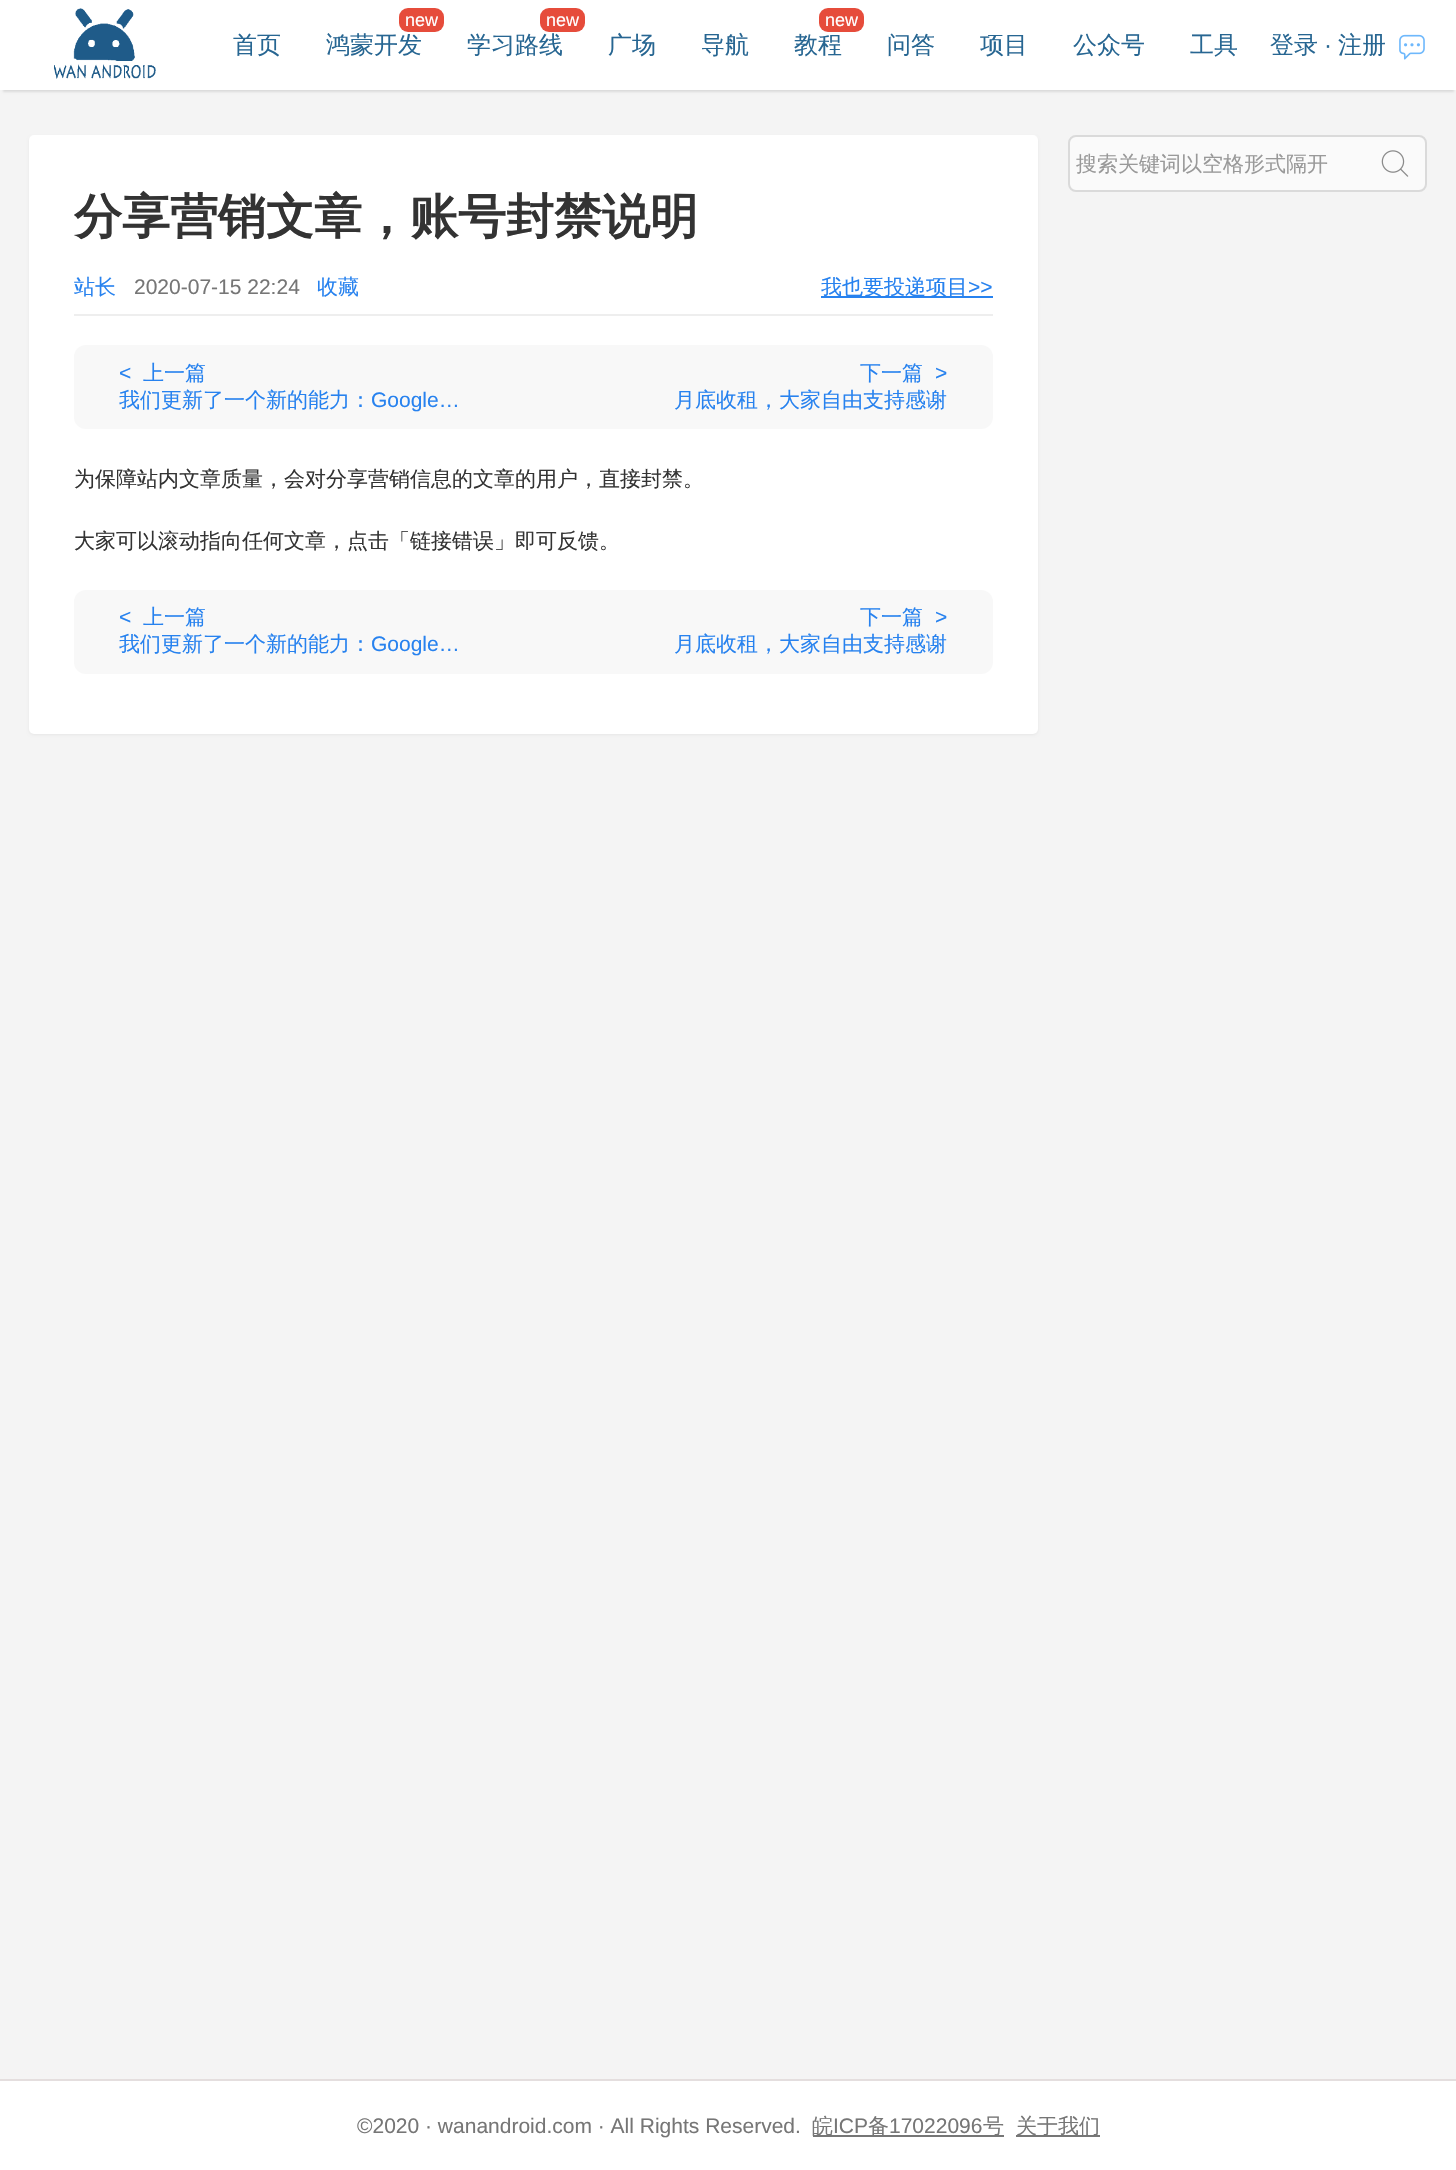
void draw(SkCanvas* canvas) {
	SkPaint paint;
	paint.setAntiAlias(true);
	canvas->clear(0xfff4f4f4);
	paint.setColor(0x1a000000);
	paint.setMaskFilter(SkMaskFilter::MakeBlur(kNormal_SkBlurStyle, 1));
	canvas->drawRect(SkRect::MakeXYWH(3, 8, 1451, 84), paint);
	paint.setMaskFilter(nullptr);
	paint.setColor(0xffffffff);
	canvas->drawRect(SkRect::MakeXYWH(0, 0, 1456, 90), paint);
	canvas->drawImageRect(SkImages::DeferredFromEncodedData(SkData::MakeFromFileName("img1.png")), SkRect::MakeXYWH(54, 8, 102, 71), SkSamplingOptions());
	SkFont f1(fontMgr->matchFamilyStyle("WenQuanYi Zen Hei", SkFontStyle(500, SkFontStyle::kNormal_Width, SkFontStyle::kUpright_Slant)), 24);
	f1.setSubpixel(true);
	paint.setColor(0xff276692);
	canvas->drawString("首页", 233, 53, f1, paint);
	paint.setColor(0xffe64c3b);
	canvas->drawRoundRect(SkRect::MakeXYWH(399, 8, 45, 24), 9, 9, paint);
	SkFont f2(fontMgr->matchFamilyStyle("Liberation Sans", SkFontStyle::Normal()), 18);
	f2.setSubpixel(true);
	paint.setColor(0xffffffff);
	canvas->drawString("new", 405, 26, f2, paint);
	paint.setColor(0xff276692);
	canvas->drawString("鸿蒙开发", 326, 53, f1, paint);
	paint.setColor(0xffe64c3b);
	canvas->drawRoundRect(SkRect::MakeXYWH(540, 8, 45, 24), 9, 9, paint);
	paint.setColor(0xffffffff);
	canvas->drawString("new", 546, 26, f2, paint);
	paint.setColor(0xff276692);
	canvas->drawString("学习路线", 467, 53, f1, paint);
	canvas->drawString("广场", 608, 53, f1, paint);
	canvas->drawString("导航", 701, 53, f1, paint);
	paint.setColor(0xffe64c3b);
	canvas->drawRoundRect(SkRect::MakeXYWH(819, 8, 45, 24), 9, 9, paint);
	paint.setColor(0xffffffff);
	canvas->drawString("new", 825, 26, f2, paint);
	paint.setColor(0xff276692);
	canvas->drawString("教程", 794, 53, f1, paint);
	canvas->drawString("问答", 887, 53, f1, paint);
	canvas->drawString("项目", 980, 53, f1, paint);
	canvas->drawString("公众号", 1073, 53, f1, paint);
	canvas->drawString("工具", 1190, 53, f1, paint);
	canvas->drawString("登录", 1270, 53, f1, paint);
	SkFont f3(fontMgr->matchFamilyStyle("Liberation Sans", SkFontStyle::Normal()), 24);
	f3.setSubpixel(true);
	canvas->drawString("·", 1324, 53, f3, paint);
	canvas->drawString("注册", 1338, 53, f1, paint);
	canvas->drawImageRect(SkImages::DeferredFromEncodedData(SkData::MakeFromFileName("img2.png")), SkRect::MakeXYWH(1399, 34, 26, 26), SkSamplingOptions());
	paint.setColor(0xfffafafa);
	canvas->drawRoundRect(SkRect::MakeXYWH(1069, 136, 357, 55), 7, 7, paint);
	paint.setStroke(true);
	paint.setStrokeWidth(2);
	paint.setColor(0xffdadada);
	canvas->drawRoundRect(SkRect::MakeXYWH(1069, 136, 357, 55), 7, 7, paint);
	SkFont f4(fontMgr->matchFamilyStyle("WenQuanYi Zen Hei", SkFontStyle(500, SkFontStyle::kNormal_Width, SkFontStyle::kUpright_Slant)), 21);
	f4.setSubpixel(true);
	paint.setStroke(false);
	paint.setColor(0xff999999);
	canvas->drawString("搜索关键词以空格形式隔开", 1076, 171, f4, paint);
	canvas->drawImageRect(SkImages::DeferredFromEncodedData(SkData::MakeFromFileName("img3.png")), SkRect::MakeXYWH(1381, 150, 28, 27), SkSamplingOptions());
	paint.setColor(0x0d000000);
	paint.setMaskFilter(SkMaskFilter::MakeBlur(kNormal_SkBlurStyle, 1.5));
	canvas->drawRoundRect(SkRect::MakeXYWH(29, 137, 1009, 598), 5, 5, paint);
	paint.setMaskFilter(nullptr);
	paint.setColor(0xffffffff);
	canvas->drawRoundRect(SkRect::MakeXYWH(29, 135, 1009, 599), 5, 5, paint);
	paint.setColor(0xffeeeeee);
	canvas->drawRect(SkRect::MakeXYWH(74, 314, 919, 2), paint);
	SkFont f5(fontMgr->matchFamilyStyle("WenQuanYi Zen Hei", SkFontStyle::Bold()), 48);
	f5.setSubpixel(true);
	paint.setColor(0xff333333);
	canvas->drawString("分享营销文章，账号封禁说明", 74, 233, f5, paint);
	paint.setColor(0xff2782ef);
	canvas->drawString("站长", 74, 294, f4, paint);
	SkFont f6(fontMgr->matchFamilyStyle("Liberation Sans", SkFontStyle::Normal()), 21);
	f6.setSubpixel(true);
	paint.setColor(0xff767676);
	canvas->drawString("2020-07-15 22:24", 134, 294, f6, paint);
	paint.setColor(0xff2782ef);
	canvas->drawString("收藏", 317, 294, f4, paint);
	canvas->drawRect(SkRect::MakeXYWH(821, 296, 172, 2), paint);
	canvas->drawString("我也要投递项目", 821, 294, f4, paint);
	canvas->drawString(">>", 968, 294, f6, paint);
	paint.setColor(0xfff8f8f8);
	canvas->drawRoundRect(SkRect::MakeXYWH(74, 345, 919, 84), 12, 12, paint);
	paint.setColor(0xff2782ef);
	canvas->drawString("<", 119, 380, f6, paint);
	canvas->drawString("上一篇", 143, 380, f4, paint);
	canvas->drawString("我们更新了一个新的能力：", 119, 407, f4, paint);
	canvas->drawString("Google…", 371, 407, f6, paint);
	canvas->drawString("下一篇", 860, 380, f4, paint);
	canvas->drawString(">", 935, 380, f6, paint);
	canvas->drawString("月底收租，大家自由支持感谢", 674, 407, f4, paint);
	paint.setColor(0xff333333);
	canvas->drawString("为保障站内文章质量，会对分享营销信息的文章的用户，直接封禁。", 74, 486, f4, paint);
	canvas->drawString("大家可以滚动指向任何文章，点击「链接错误」即可反馈。", 74, 548, f4, paint);
	paint.setColor(0xfff8f8f8);
	canvas->drawRoundRect(SkRect::MakeXYWH(74, 590, 919, 84), 12, 12, paint);
	paint.setColor(0xff2782ef);
	canvas->drawString("<", 119, 624, f6, paint);
	canvas->drawString("上一篇", 143, 624, f4, paint);
	canvas->drawString("我们更新了一个新的能力：", 119, 651, f4, paint);
	canvas->drawString("Google…", 371, 651, f6, paint);
	canvas->drawString("下一篇", 860, 624, f4, paint);
	canvas->drawString(">", 935, 624, f6, paint);
	canvas->drawString("月底收租，大家自由支持感谢", 674, 651, f4, paint);
	paint.setColor(0xffffffff);
	canvas->drawRect(SkRect::MakeXYWH(0, 2081, 1456, 89), paint);
	paint.setColor(0xffe4dede);
	canvas->drawRect(SkRect::MakeXYWH(0, 2079, 1456, 2), paint);
	paint.setColor(0xff767676);
	canvas->drawString("©2020 · wanandroid.com · All Rights Reserved.", 357, 2133, f6, paint);
	canvas->drawRect(SkRect::MakeXYWH(813, 2135, 191, 2), paint);
	canvas->drawString("皖", 812, 2133, f4, paint);
	canvas->drawString("ICP", 833, 2133, f6, paint);
	canvas->drawString("备", 868, 2133, f4, paint);
	canvas->drawString("17022096", 889, 2133, f6, paint);
	canvas->drawString("号", 983, 2133, f4, paint);
	canvas->drawRect(SkRect::MakeXYWH(1016, 2135, 84, 2), paint);
	canvas->drawString("关于我们", 1016, 2133, f4, paint);
}
